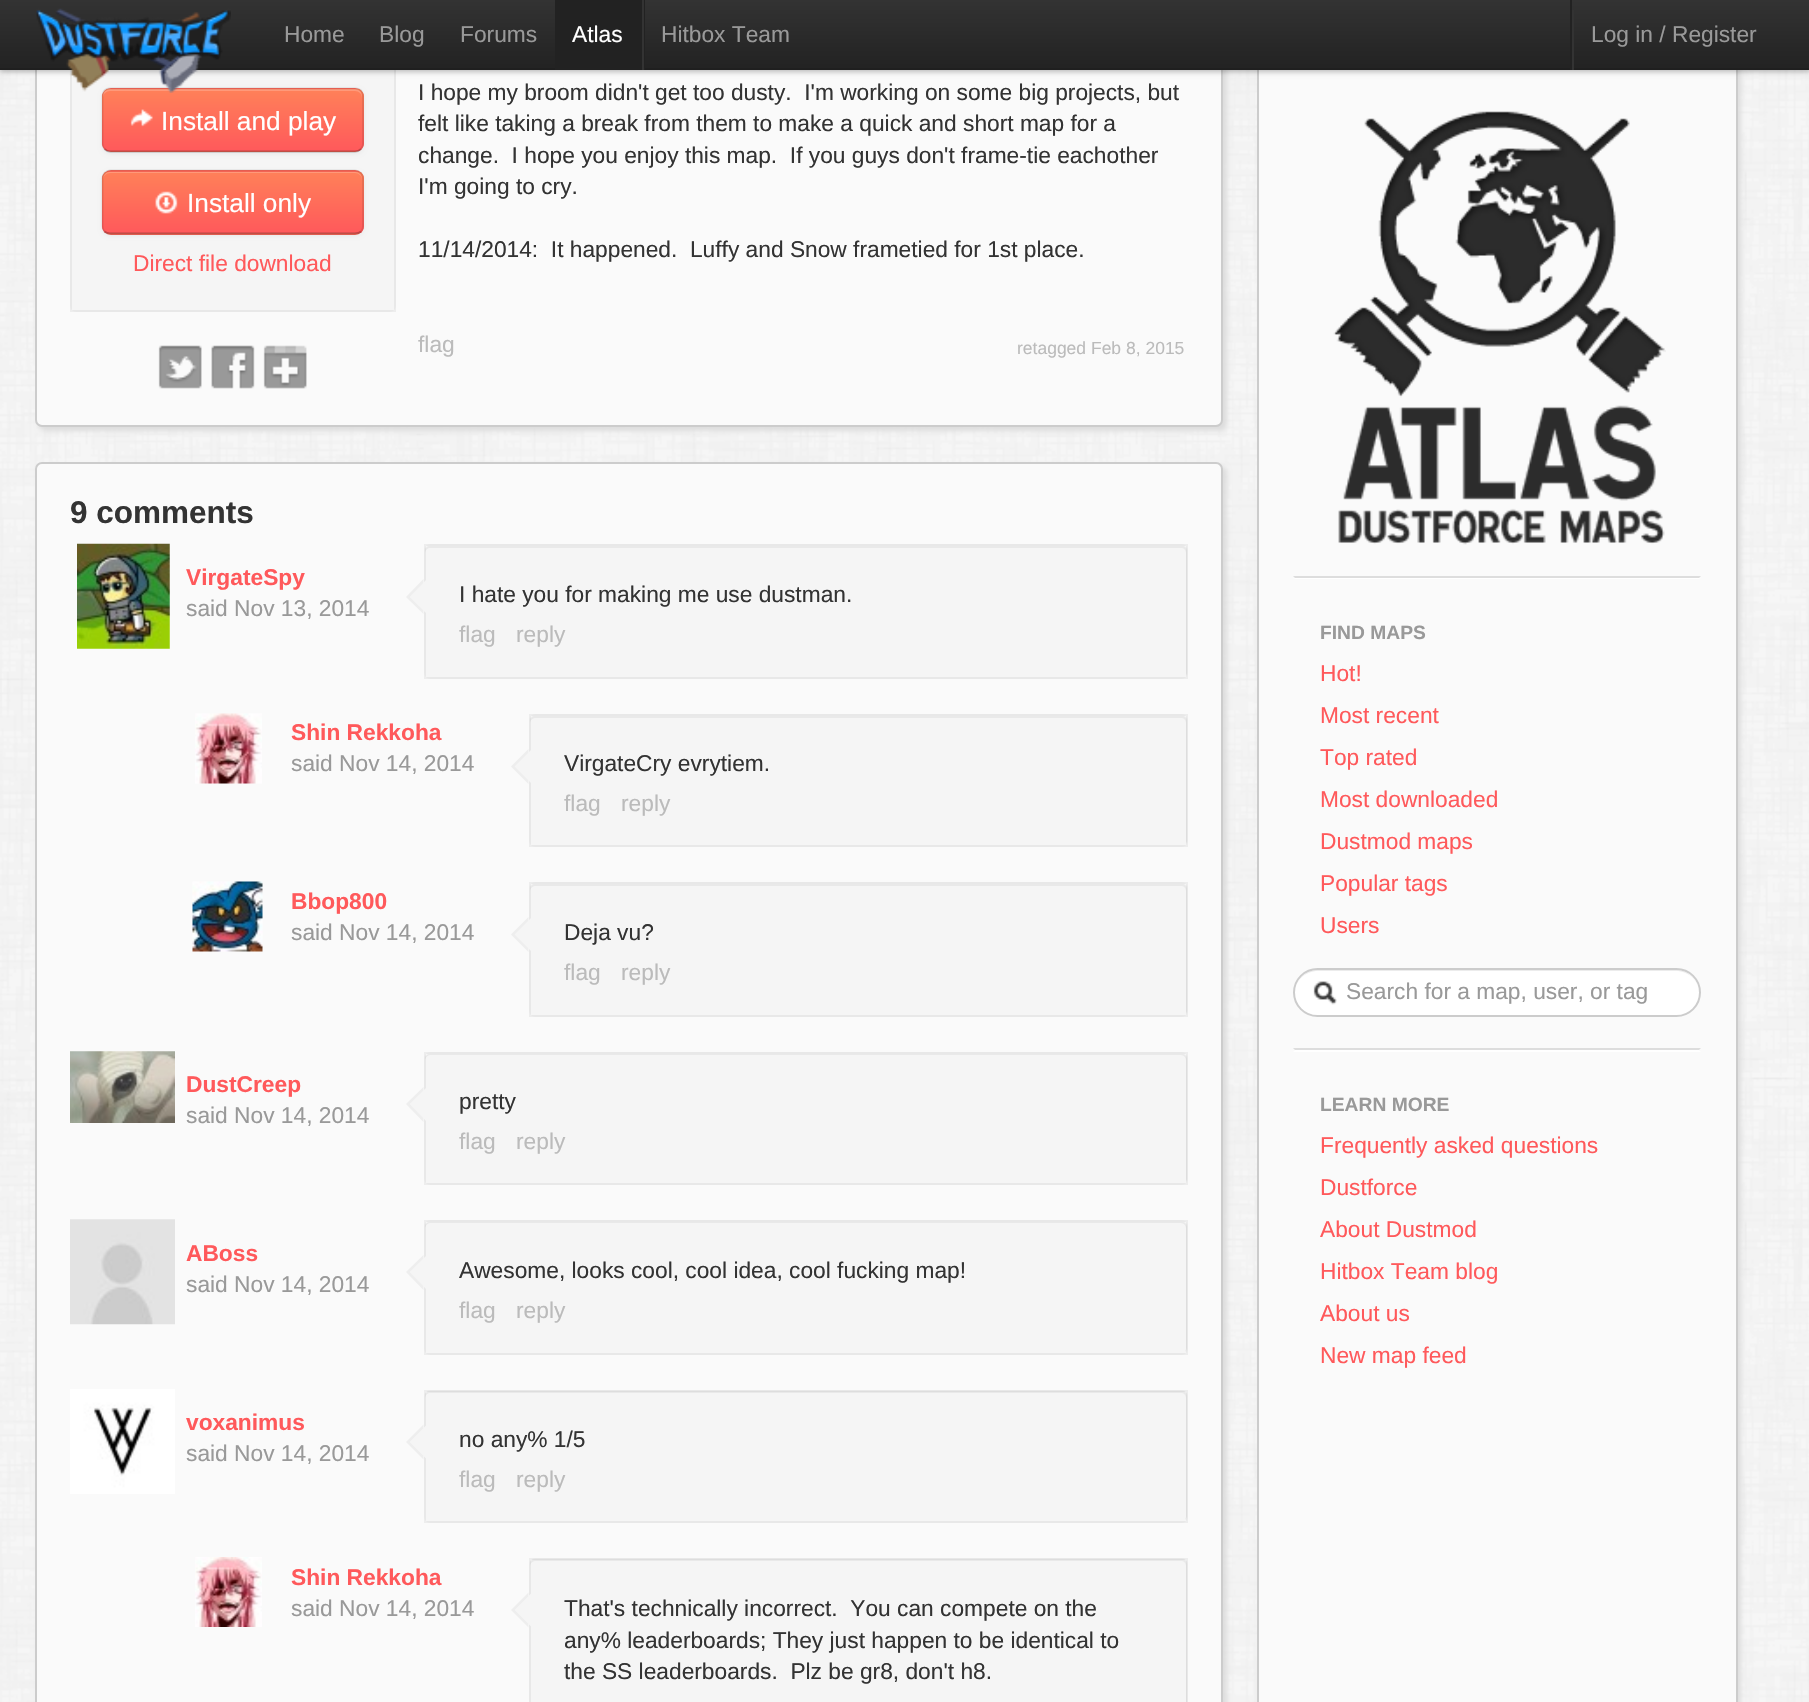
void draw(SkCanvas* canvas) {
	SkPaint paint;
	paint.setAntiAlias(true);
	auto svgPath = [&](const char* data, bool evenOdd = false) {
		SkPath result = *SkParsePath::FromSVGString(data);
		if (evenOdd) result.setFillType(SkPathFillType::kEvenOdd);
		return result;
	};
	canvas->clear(0xffffffff);
	canvas->drawImageRect(SkImages::DeferredFromEncodedData(SkData::MakeFromFileName("img1.png")), SkRect::MakeXYWH(0, 70, 1809, 1632), SkSamplingOptions());
	paint.setColor(0xffdddddd);
	paint.setMaskFilter(SkMaskFilter::MakeBlur(kNormal_SkBlurStyle, 2.5));
	canvas->drawRoundRect(SkRect::MakeXYWH(39, -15, 1188, 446), 7, 7, paint);
	paint.setMaskFilter(nullptr);
	paint.setColor(0xfffafafa);
	canvas->drawRoundRect(SkRect::MakeXYWH(36, -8, 1186, 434), 6, 6, paint);
	paint.setStroke(true);
	paint.setStrokeWidth(2);
	paint.setColor(0xffcccccc);
	canvas->drawRoundRect(SkRect::MakeXYWH(36, -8, 1186, 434), 6, 6, paint);
	paint.setStroke(false);
	paint.setColor(0xfff5f5f5);
	canvas->drawRoundRect(SkRect::MakeXYWH(70, -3, 326, 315), 7, 7, paint);
	paint.setStroke(true);
	paint.setColor(0x0d000000);
	canvas->drawRect(SkRect::MakeXYWH(71, -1, 324, 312), paint);
	paint.setStroke(false);
	paint.setColor(0xffdddddd);
	paint.setMaskFilter(SkMaskFilter::MakeBlur(kNormal_SkBlurStyle, 2.5));
	canvas->drawRoundRect(SkRect::MakeXYWH(1260, 4, 481, 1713), 7, 7, paint);
	paint.setMaskFilter(nullptr);
	paint.setColor(0xfffafafa);
	canvas->drawRect(SkRect::MakeXYWH(1259, 70, 477, 1632), paint);
	paint.setStroke(true);
	paint.setColor(0xffcccccc);
	canvas->drawRect(SkRect::MakeXYWH(1258, 1, 479, 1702), paint);
	paint.setStroke(false);
	paint.setColor(0x40000000);
	paint.setMaskFilter(SkMaskFilter::MakeBlur(kNormal_SkBlurStyle, 2.5));
	canvas->drawRect(SkRect::MakeXYWH(0, 2, 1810, 70), paint);
	paint.setMaskFilter(nullptr);
	{
		const SkColor colors[] = {0xff333333, 0xff222222};
		const float stops[] = {0, 1};
		const SkPoint ends[] = {{905, 0}, {905, 70}};
		paint.setShader(SkGradientShader::MakeLinear(ends, colors, stops, 2, SkTileMode::kClamp));
		paint.setAlpha(255);
	}
	canvas->drawRect(SkRect::MakeXYWH(0, 0, 1809, 68), paint);
	paint.setShader(nullptr);
	paint.setColor(0xff1f1f1f);
	canvas->drawRect(SkRect::MakeXYWH(0, 68, 1809, 2), paint);
	paint.setColor(0x0d000000);
	paint.setMaskFilter(SkMaskFilter::MakeBlur(kNormal_SkBlurStyle, 2));
	canvas->drawRoundRect(SkRect::MakeXYWH(102, 89, 262, 65), 9, 9, paint);
	paint.setMaskFilter(nullptr);
	paint.setColor(0xffff695a);
	canvas->drawRoundRect(SkRect::MakeXYWH(102, 88, 262, 64), 9, 9, paint);
	canvas->save();
	canvas->clipPath(svgPath("M111 88H355C360 88 364 92 364 97V143C364 148 360 152 355 152H111C106 152 102 148 102 143V97C102 92 106 88 111 88Z"), true);
	{
		const SkColor colors[] = {0xffff8159, 0xffff595b};
		const float stops[] = {0, 1};
		const SkPoint ends[] = {{233, 89}, {233, 151}};
		paint.setShader(SkGradientShader::MakeLinear(ends, colors, stops, 2, SkTileMode::kClamp));
		paint.setAlpha(255);
	}
	canvas->drawRect(SkRect::MakeXYWH(102, 89, 262, 62), paint);
	canvas->restore();
	paint.setShader(nullptr);
	paint.setColor(0x33ffffff);
	canvas->drawPath(svgPath("M110 91H355C359 91 362 94 362 98V96C362 92 359 89 355 89H110C106 89 103 92 103 96V98C103 94 106 91 110 91Z"), paint);
	paint.setStroke(true);
	paint.setStrokeWidth(1.8);
	paint.setColor(0x40000000);
	canvas->drawPath(svgPath("M361 149C359.5 150.5 357.5 151.5 355 151.5H110C108 151.5 106 150.5 104.5 149"), paint);
	paint.setColor(0x1a000000);
	canvas->drawPath(svgPath("M104.5 149C103 147.5 102.5 145.5 102.5 143.5V96C102.5 94 103 92 104.5 90.5C106 89 108 88.5 110 88.5H355C357.5 88.5 359.5 89 361 90.5C362.5 92 363 94 363 96V143.5C363 145.5 362.5 147.5 361 149"), paint);
	canvas->drawImageRect(SkImages::DeferredFromEncodedData(SkData::MakeFromFileName("img2.png")), SkRect::MakeXYWH(36, 8, 195, 85), SkSamplingOptions());
	SkFont f1(fontMgr->matchFamilyStyle("Liberation Sans", SkFontStyle::Normal()), 22.75);
	f1.setSubpixel(true);
	paint.setStroke(false);
	paint.setColor(0xff999999);
	canvas->drawString("Home", 284, 42, f1, paint);
	canvas->drawString("Blog", 379, 42, f1, paint);
	canvas->drawString("Forums", 460, 42, f1, paint);
	paint.setColor(0xff222222);
	canvas->drawRect(SkRect::MakeXYWH(555, 0, 90, 70), paint);
	paint.setColor(0xffffffff);
	canvas->drawString("Atlas", 572, 42, f1, paint);
	paint.setColor(0xff333333);
	canvas->drawRect(SkRect::MakeXYWH(642, 0, 2, 70), paint);
	paint.setColor(0xff999999);
	canvas->drawString("Hitbox Team", 661, 42, f1, paint);
	paint.setColor(0xff222222);
	canvas->drawRect(SkRect::MakeXYWH(1570, 0, 2, 70), paint);
	paint.setColor(0xff333333);
	canvas->drawRect(SkRect::MakeXYWH(1572, 10, 2, 60), paint);
	paint.setColor(0xff999999);
	canvas->drawString("Log in / Register", 1591, 42, f1, paint);
	canvas->drawImageRect(SkImages::DeferredFromEncodedData(SkData::MakeFromFileName("img3.png")), SkRect::MakeXYWH(130, 109, 23, 18), SkSamplingOptions());
	SkFont f2(fontMgr->matchFamilyStyle("Liberation Sans", SkFontStyle::Normal()), 26.25);
	f2.setSubpixel(true);
	paint.setColor(0xffffffff);
	canvas->drawString("Install and play", 161, 130, f2, paint);
	paint.setColor(0x0d000000);
	paint.setMaskFilter(SkMaskFilter::MakeBlur(kNormal_SkBlurStyle, 2));
	canvas->drawRoundRect(SkRect::MakeXYWH(102, 172, 262, 64), 9, 9, paint);
	paint.setMaskFilter(nullptr);
	paint.setColor(0xffff695a);
	canvas->drawRoundRect(SkRect::MakeXYWH(102, 170, 262, 65), 9, 9, paint);
	canvas->save();
	canvas->clipPath(svgPath("M111 170H355C360 170 364 174 364 179V226C364 231 360 235 355 235H111C106 235 102 231 102 226V179C102 174 106 170 111 170Z"), true);
	{
		const SkColor colors[] = {0xffff8159, 0xffff595b};
		const float stops[] = {0, 1};
		const SkPoint ends[] = {{233, 171}, {233, 233}};
		paint.setShader(SkGradientShader::MakeLinear(ends, colors, stops, 2, SkTileMode::kClamp));
		paint.setAlpha(255);
	}
	canvas->drawRect(SkRect::MakeXYWH(102, 172, 262, 61), paint);
	canvas->restore();
	paint.setShader(nullptr);
	paint.setColor(0xffff997a);
	canvas->drawPath(svgPath("M110 173H355C359 173 362 176 362 180V179C362 175 359 172 355 172H110C106 172 103 175 103 179V180C103 176 106 173 110 173Z"), paint);
	paint.setStroke(true);
	paint.setColor(0x40000000);
	canvas->drawPath(svgPath("M361 231.5C359.5 233 357.5 233.5 355 233.5H110C108 233.5 106 233 104.5 231.5"), paint);
	paint.setColor(0x1a000000);
	canvas->drawPath(svgPath("M104.5 231.5C103 230 102.5 228 102.5 226V178.5C102.5 176.5 103 174.5 104.5 173C106 171.5 108 170.5 110 170.5H355C357.5 170.5 359.5 171.5 361 173C362.5 174.5 363 176.5 363 178.5V226C363 228 362.5 230 361 231.5"), paint);
	canvas->drawImageRect(SkImages::DeferredFromEncodedData(SkData::MakeFromFileName("img4.png")), SkRect::MakeXYWH(155, 191, 23, 23), SkSamplingOptions());
	paint.setStroke(false);
	paint.setColor(0xffffffff);
	canvas->drawString("Install only", 187, 212, f2, paint);
	paint.setColor(0xffff595b);
	canvas->drawString("Direct file download", 133, 271, f1, paint);
	canvas->drawImageRect(SkImages::DeferredFromEncodedData(SkData::MakeFromFileName("img5.png")), SkRect::MakeXYWH(158, 345, 44, 44), SkSamplingOptions());
	canvas->drawImageRect(SkImages::DeferredFromEncodedData(SkData::MakeFromFileName("img6.png")), SkRect::MakeXYWH(211, 345, 44, 44), SkSamplingOptions());
	canvas->drawImageRect(SkImages::DeferredFromEncodedData(SkData::MakeFromFileName("img7.png")), SkRect::MakeXYWH(263, 345, 44, 44), SkSamplingOptions());
	paint.setColor(0xff333333);
	canvas->drawString("I hope my broom didn't get too dusty.  I'm working on some big projects, but", 418, 100, f1, paint);
	canvas->drawString("felt like taking a break from them to make a quick and short map for a", 418, 131, f1, paint);
	canvas->drawString("change.  I hope you enjoy this map.  If you guys don't frame-tie eachother", 418, 163, f1, paint);
	canvas->drawString("I'm going to cry.", 418, 194, f1, paint);
	canvas->drawString("11/14/2014:  It happened.  Luffy and Snow frametied for 1st place.", 418, 257, f1, paint);
	paint.setColor(0xffbbbbbb);
	canvas->drawString("flag", 418, 352, f1, paint);
	SkFont f3(fontMgr->matchFamilyStyle("Liberation Sans", SkFontStyle::Normal()), 17.5);
	f3.setSubpixel(true);
	canvas->drawString("retagged Feb 8, 2015", 1017, 354, f3, paint);
	paint.setColor(0xffdddddd);
	paint.setMaskFilter(SkMaskFilter::MakeBlur(kNormal_SkBlurStyle, 2.5));
	canvas->drawRoundRect(SkRect::MakeXYWH(39, 466, 1188, 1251), 7, 7, paint);
	paint.setMaskFilter(nullptr);
	paint.setColor(0xfffafafa);
	canvas->drawRoundRect(SkRect::MakeXYWH(36, 463, 1186, 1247), 6, 6, paint);
	paint.setStroke(true);
	paint.setStrokeWidth(2);
	paint.setColor(0xffcccccc);
	canvas->drawRoundRect(SkRect::MakeXYWH(36, 463, 1186, 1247), 6, 6, paint);
	SkFont f4(fontMgr->matchFamilyStyle("Liberation Sans", SkFontStyle::Bold()), 31.5);
	f4.setSubpixel(true);
	paint.setStroke(false);
	paint.setColor(0xff333333);
	canvas->drawString("9 comments", 70, 523, f4, paint);
	canvas->drawImageRect(SkImages::DeferredFromEncodedData(SkData::MakeFromFileName("img8.png")), SkRect::MakeXYWH(77, 543, 93, 106), SkSamplingOptions());
	SkFont f5(fontMgr->matchFamilyStyle("Liberation Sans", SkFontStyle::Bold()), 22.75);
	f5.setSubpixel(true);
	paint.setColor(0xffff595b);
	canvas->drawString("VirgateSpy", 186, 585, f5, paint);
	paint.setColor(0xff999999);
	canvas->drawString("said Nov 13, 2014", 186, 616, f1, paint);
	paint.setColor(0xffeeeeee);
	canvas->drawPath(svgPath("M423.5 579V614L406 597Z"), paint);
	paint.setColor(0xfff5f5f5);
	canvas->drawRoundRect(SkRect::MakeXYWH(424, 544, 764, 135), 7, 7, paint);
	paint.setColor(0xffe9e9e9);
	canvas->drawPath(svgPath("M430 548H1181C1184 548 1186 550 1186 553V675C1187 674 1187 673 1187 672V551C1187 548 1185 546 1182 546H430C427 546 425 548 425 551V553C425 550 428 548 430 548Z"), paint);
	paint.setStroke(true);
	paint.setColor(0x0d000000);
	canvas->drawRect(SkRect::MakeXYWH(425, 545, 762, 133), paint);
	paint.setStroke(false);
	paint.setColor(0xfff5f5f5);
	canvas->drawPath(svgPath("M427 579V614L409.5 597Z"), paint);
	paint.setColor(0xff333333);
	canvas->drawString("I hate you for making me use dustman.", 459, 602, f1, paint);
	paint.setColor(0xffbbbbbb);
	canvas->drawString("flag", 459, 642, f1, paint);
	canvas->drawString("reply", 516, 642, f1, paint);
	canvas->drawImageRect(SkImages::DeferredFromEncodedData(SkData::MakeFromFileName("img9.png")), SkRect::MakeXYWH(195, 713, 67, 71), SkSamplingOptions());
	paint.setColor(0xffff595b);
	canvas->drawString("Shin Rekkoha", 291, 740, f5, paint);
	paint.setColor(0xff999999);
	canvas->drawString("said Nov 14, 2014", 291, 771, f1, paint);
	paint.setColor(0xffeeeeee);
	canvas->drawPath(svgPath("M528.5 749V784L511 766.5Z"), paint);
	paint.setColor(0xfff5f5f5);
	canvas->drawRoundRect(SkRect::MakeXYWH(529, 714, 659, 133), 7, 7, paint);
	paint.setColor(0xffe9e9e9);
	canvas->drawPath(svgPath("M536 718H1181C1184 718 1186 720 1186 723V843C1187 842 1187 841 1187 840V721C1187 718 1185 716 1182 716H535C532 716 530 718 530 721V723C530 720 533 718 536 718Z"), paint);
	paint.setStroke(true);
	paint.setColor(0x0d000000);
	canvas->drawRect(SkRect::MakeXYWH(530, 715, 657, 131), paint);
	paint.setStroke(false);
	paint.setColor(0xfff5f5f5);
	canvas->drawPath(svgPath("M532 749V784L514.5 766.5Z"), paint);
	paint.setColor(0xff333333);
	canvas->drawString("VirgateCry evrytiem.", 564, 771, f1, paint);
	paint.setColor(0xffbbbbbb);
	canvas->drawString("flag", 564, 811, f1, paint);
	canvas->drawString("reply", 621, 811, f1, paint);
	canvas->drawImageRect(SkImages::DeferredFromEncodedData(SkData::MakeFromFileName("img10.png")), SkRect::MakeXYWH(192, 881, 71, 71), SkSamplingOptions());
	paint.setColor(0xffff595b);
	canvas->drawString("Bbop800", 291, 909, f5, paint);
	paint.setColor(0xff999999);
	canvas->drawString("said Nov 14, 2014", 291, 940, f1, paint);
	paint.setColor(0xffeeeeee);
	canvas->drawPath(svgPath("M528.5 917V952L511 934.5Z"), paint);
	paint.setColor(0xfff5f5f5);
	canvas->drawRoundRect(SkRect::MakeXYWH(529, 882, 659, 135), 7, 7, paint);
	paint.setColor(0xffe9e9e9);
	canvas->drawPath(svgPath("M536 886H1181C1184 886 1186 888 1186 891V1013C1187 1012 1187 1011 1187 1010V889C1187 886 1185 884 1182 884H535C532 884 530 886 530 889V891C530 888 533 886 536 886Z"), paint);
	paint.setStroke(true);
	paint.setColor(0x0d000000);
	canvas->drawRect(SkRect::MakeXYWH(530, 883, 657, 133), paint);
	paint.setStroke(false);
	paint.setColor(0xfff5f5f5);
	canvas->drawPath(svgPath("M532 917V952L514.5 934.5Z"), paint);
	paint.setColor(0xff333333);
	canvas->drawString("Deja vu?", 564, 940, f1, paint);
	paint.setColor(0xffbbbbbb);
	canvas->drawString("flag", 564, 980, f1, paint);
	canvas->drawString("reply", 621, 980, f1, paint);
	canvas->drawImageRect(SkImages::DeferredFromEncodedData(SkData::MakeFromFileName("img11.png")), SkRect::MakeXYWH(70, 1051, 105, 72), SkSamplingOptions());
	paint.setColor(0xffff595b);
	canvas->drawString("DustCreep", 186, 1092, f5, paint);
	paint.setColor(0xff999999);
	canvas->drawString("said Nov 14, 2014", 186, 1123, f1, paint);
	paint.setColor(0xffeeeeee);
	canvas->drawPath(svgPath("M423.5 1087V1122L406 1104Z"), paint);
	paint.setColor(0xfff5f5f5);
	canvas->drawRoundRect(SkRect::MakeXYWH(424, 1052, 764, 133), 7, 7, paint);
	paint.setColor(0xffe9e9e9);
	canvas->drawPath(svgPath("M430 1055H1181C1184 1055 1186 1058 1186 1060V1181C1187 1180 1187 1179 1187 1178V1059C1187 1056 1185 1054 1182 1054H430C427 1054 425 1056 425 1059V1060C425 1058 428 1055 430 1055Z"), paint);
	paint.setStroke(true);
	paint.setColor(0x0d000000);
	canvas->drawRect(SkRect::MakeXYWH(425, 1053, 762, 131), paint);
	paint.setStroke(false);
	paint.setColor(0xfff5f5f5);
	canvas->drawPath(svgPath("M427 1087V1122L409.5 1104Z"), paint);
	paint.setColor(0xff333333);
	canvas->drawString("pretty", 459, 1109, f1, paint);
	paint.setColor(0xffbbbbbb);
	canvas->drawString("flag", 459, 1149, f1, paint);
	canvas->drawString("reply", 516, 1149, f1, paint);
	canvas->drawImageRect(SkImages::DeferredFromEncodedData(SkData::MakeFromFileName("img12.png")), SkRect::MakeXYWH(70, 1219, 105, 106), SkSamplingOptions());
	paint.setColor(0xffff595b);
	canvas->drawString("ABoss", 186, 1261, f5, paint);
	paint.setColor(0xff999999);
	canvas->drawString("said Nov 14, 2014", 186, 1292, f1, paint);
	paint.setColor(0xffeeeeee);
	canvas->drawPath(svgPath("M423.5 1255V1290L406 1272Z"), paint);
	paint.setColor(0xfff5f5f5);
	canvas->drawRoundRect(SkRect::MakeXYWH(424, 1220, 764, 135), 7, 7, paint);
	paint.setColor(0xffe9e9e9);
	canvas->drawPath(svgPath("M430 1223H1181C1184 1223 1186 1226 1186 1228V1349L1185 1352C1186 1351 1187 1349 1187 1348V1227C1187 1224 1185 1222 1182 1222H430C427 1222 425 1224 425 1227V1228C425 1226 428 1223 430 1223Z"), paint);
	paint.setStroke(true);
	paint.setColor(0x0d000000);
	canvas->drawRect(SkRect::MakeXYWH(425, 1221, 762, 133), paint);
	paint.setStroke(false);
	paint.setColor(0xfff5f5f5);
	canvas->drawPath(svgPath("M427 1255V1290L409.5 1272Z"), paint);
	paint.setColor(0xff333333);
	canvas->drawString("Awesome, looks cool, cool idea, cool fucking map!", 459, 1278, f1, paint);
	paint.setColor(0xffbbbbbb);
	canvas->drawString("flag", 459, 1318, f1, paint);
	canvas->drawString("reply", 516, 1318, f1, paint);
	canvas->drawImageRect(SkImages::DeferredFromEncodedData(SkData::MakeFromFileName("img13.png")), SkRect::MakeXYWH(70, 1389, 105, 105), SkSamplingOptions());
	paint.setColor(0xffff595b);
	canvas->drawString("voxanimus", 186, 1430, f5, paint);
	paint.setColor(0xff999999);
	canvas->drawString("said Nov 14, 2014", 186, 1461, f1, paint);
	paint.setColor(0xffeeeeee);
	canvas->drawPath(svgPath("M423.5 1424.5V1459.5L406 1442Z"), paint);
	paint.setColor(0xfff5f5f5);
	canvas->drawRoundRect(SkRect::MakeXYWH(424, 1390, 764, 133), 7, 7, paint);
	paint.setColor(0xffe9e9e9);
	canvas->drawPath(svgPath("M430 1393H1181C1184 1393 1186 1395 1186 1398V1517L1185 1520C1186 1519 1187 1517 1187 1516V1396C1187 1393 1185 1391 1182 1391H430C427 1391 425 1393 425 1396V1398C425 1395 428 1393 430 1393Z"), paint);
	paint.setStroke(true);
	paint.setColor(0x0d000000);
	canvas->drawRect(SkRect::MakeXYWH(425, 1391, 762, 131), paint);
	paint.setStroke(false);
	paint.setColor(0xfff5f5f5);
	canvas->drawPath(svgPath("M427 1424.5V1459.5L409.5 1442Z"), paint);
	paint.setColor(0xff333333);
	canvas->drawString("no any% 1/5", 459, 1447, f1, paint);
	paint.setColor(0xffbbbbbb);
	canvas->drawString("flag", 459, 1487, f1, paint);
	canvas->drawString("reply", 516, 1487, f1, paint);
	canvas->drawImageRect(SkImages::DeferredFromEncodedData(SkData::MakeFromFileName("img14.png")), SkRect::MakeXYWH(195, 1557, 67, 70), SkSamplingOptions());
	paint.setColor(0xffff595b);
	canvas->drawString("Shin Rekkoha", 291, 1585, f5, paint);
	paint.setColor(0xff999999);
	canvas->drawString("said Nov 14, 2014", 291, 1616, f1, paint);
	paint.setColor(0xffeeeeee);
	canvas->drawPath(svgPath("M528.5 1592.5V1627.5L511 1610Z"), paint);
	paint.setColor(0xfff5f5f5);
	canvas->drawRoundRect(SkRect::MakeXYWH(529, 1558, 659, 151), 7, 7, paint);
	paint.setColor(0xffe9e9e9);
	canvas->drawPath(svgPath("M536 1561H1181C1184 1561 1186 1563 1186 1566V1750L1185 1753C1186 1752 1187 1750 1187 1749V1564C1187 1561 1185 1559 1182 1559H535C532 1559 530 1561 530 1564V1566C530 1563 533 1561 536 1561Z"), paint);
	paint.setStroke(true);
	paint.setColor(0x0d000000);
	canvas->drawRect(SkRect::MakeXYWH(530, 1559, 657, 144), paint);
	paint.setStroke(false);
	paint.setColor(0xfff5f5f5);
	canvas->drawPath(svgPath("M532 1592.5V1627.5L514.5 1610Z"), paint);
	paint.setColor(0xff333333);
	canvas->drawString("That's technically incorrect.  You can compete on the", 564, 1616, f1, paint);
	canvas->drawString("any% leaderboards; They just happen to be identical to", 564, 1648, f1, paint);
	canvas->drawString("the SS leaderboards.  Plz be gr8, don't h8.", 564, 1679, f1, paint);
	canvas->drawImageRect(SkImages::DeferredFromEncodedData(SkData::MakeFromFileName("img15.png")), SkRect::MakeXYWH(1333, 111, 333, 434), SkSamplingOptions());
	paint.setColor(0xffdddddd);
	canvas->drawPath(svgPath("M1293 576H1701L1699 578H1295Z"), paint);
	paint.setColor(0xffffffff);
	canvas->drawPath(svgPath("M1701 579H1293L1295 578H1699Z"), paint);
	SkFont f6(fontMgr->matchFamilyStyle("Liberation Sans", SkFontStyle::Bold()), 19.25);
	f6.setSubpixel(true);
	paint.setColor(0xff999999);
	canvas->drawString("FIND MAPS", 1320, 639, f6, paint);
	paint.setColor(0xffff595b);
	canvas->drawString("Hot!", 1320, 681, f1, paint);
	canvas->drawString("Most recent", 1320, 723, f1, paint);
	canvas->drawString("Top rated", 1320, 765, f1, paint);
	canvas->drawString("Most downloaded", 1320, 807, f1, paint);
	canvas->drawString("Dustmod maps", 1320, 849, f1, paint);
	canvas->drawString("Popular tags", 1320, 891, f1, paint);
	canvas->drawString("Users", 1320, 933, f1, paint);
	paint.setColor(0xffffffff);
	canvas->drawRoundRect(SkRect::MakeXYWH(1293, 968, 408, 49), 24.5, 24.5, paint);
	paint.setColor(0xffececec);
	canvas->drawPath(svgPath("M1318 971H1676C1689 971 1699 981 1699 993C1699 981 1689 970 1676 970H1318C1305 970 1295 981 1295 993C1295 981 1305 971 1318 971Z"), paint);
	paint.setStroke(true);
	paint.setColor(0xffcccccc);
	canvas->drawRoundRect(SkRect::MakeXYWH(1294, 969, 406, 47), 23.5, 23.5, paint);
	canvas->drawImageRect(SkImages::DeferredFromEncodedData(SkData::MakeFromFileName("img16.png")), SkRect::MakeXYWH(1313, 981, 24, 24), SkSamplingOptions());
	paint.setStroke(false);
	paint.setColor(0xff999999);
	canvas->drawString("Search for a map, user, or tag", 1346, 999, f1, paint);
	paint.setColor(0xffdddddd);
	canvas->drawPath(svgPath("M1293 1048H1701L1699 1050H1295Z"), paint);
	paint.setColor(0xffffffff);
	canvas->drawPath(svgPath("M1701 1052H1293L1295 1050H1699Z"), paint);
	paint.setColor(0xff999999);
	canvas->drawString("LEARN MORE", 1320, 1111, f6, paint);
	paint.setColor(0xffff595b);
	canvas->drawString("Frequently asked questions", 1320, 1153, f1, paint);
	canvas->drawString("Dustforce", 1320, 1195, f1, paint);
	canvas->drawString("About Dustmod", 1320, 1237, f1, paint);
	canvas->drawString("Hitbox Team blog", 1320, 1279, f1, paint);
	canvas->drawString("About us", 1320, 1321, f1, paint);
	canvas->drawString("New map feed", 1320, 1363, f1, paint);
}
